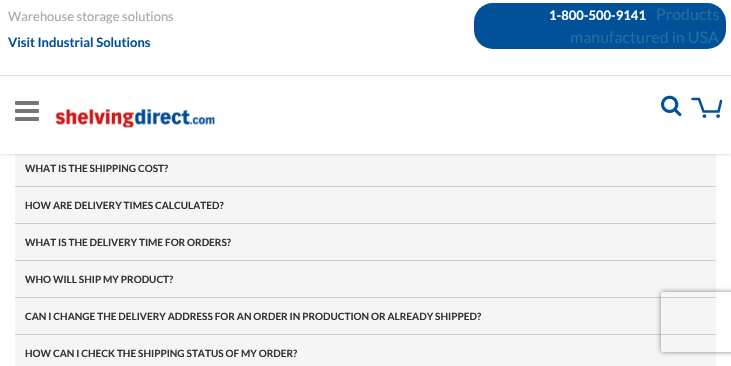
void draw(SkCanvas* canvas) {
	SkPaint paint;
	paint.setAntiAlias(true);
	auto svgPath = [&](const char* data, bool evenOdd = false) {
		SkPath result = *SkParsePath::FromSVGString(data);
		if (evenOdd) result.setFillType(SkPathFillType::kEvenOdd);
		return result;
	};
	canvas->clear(0xffffffff);
	paint.setColor(0xfff5f5f5);
	canvas->drawRect(SkRect::MakeXYWH(15, 154, 701, 32), paint);
	paint.setColor(0x33000000);
	paint.setMaskFilter(SkMaskFilter::MakeBlur(kNormal_SkBlurStyle, 1.5));
	canvas->drawRect(SkRect::MakeXYWH(0, 0, 731, 154), paint);
	paint.setMaskFilter(nullptr);
	paint.setColor(0xffffffff);
	canvas->drawRect(SkRect::MakeXYWH(0, 0, 731, 154), paint);
	SkFont f1(fontMgr->matchFamilyStyle("Lato", SkFontStyle::Normal()), 13);
	f1.setSubpixel(true);
	paint.setColor(0xffa8a8a8);
	canvas->drawString("Warehouse storage solutions", 8, 21, f1, paint);
	SkFont f2(fontMgr->matchFamilyStyle("Lato", SkFontStyle::Bold()), 13);
	f2.setSubpixel(true);
	paint.setColor(0xff005198);
	canvas->drawString("Visit Industrial Solutions", 8, 47, f2, paint);
	canvas->drawRoundRect(SkRect::MakeXYWH(474, 3, 252, 46), 19, 19, paint);
	paint.setColor(0xffffffff);
	canvas->drawString("1-800-500-9141", 549, 20, f2, paint);
	SkFont f3(fontMgr->matchFamilyStyle("Lato", SkFontStyle::Normal()), 16);
	f3.setSubpixel(true);
	paint.setColor(0xff236fa1);
	canvas->drawString("Products", 656, 20, f3, paint);
	canvas->drawString("manufactured in USA", 570, 43, f3, paint);
	paint.setColor(0xffdfdfdf);
	canvas->drawRect(SkRect::MakeXYWH(0, 75, 731, 1), paint);
	canvas->drawImageRect(SkImages::DeferredFromEncodedData(SkData::MakeFromFileName("img1.png")), SkRect::MakeXYWH(15, 101, 24, 20), SkSamplingOptions());
	canvas->drawImageRect(SkImages::DeferredFromEncodedData(SkData::MakeFromFileName("img2.png")), SkRect::MakeXYWH(55, 109, 160, 19), SkSamplingOptions());
	canvas->drawImageRect(SkImages::DeferredFromEncodedData(SkData::MakeFromFileName("img3.png")), SkRect::MakeXYWH(661, 95, 21, 22), SkSamplingOptions());
	paint.setStroke(true);
	paint.setStrokeWidth(2.5);
	paint.setStrokeCap(SkPaint::kRound_Cap);
	paint.setColor(0xff005198);
	canvas->drawPath(svgPath("M692.5 99H699L703.5 111.5H718.5L721 101"), paint);
	paint.setStroke(false);
	canvas->drawCircle(704.4, 116.1, 1.9, paint);
	canvas->drawCircle(718.1, 116.1, 1.9, paint);
	paint.setColor(0xffcccccc);
	canvas->drawRect(SkRect::MakeXYWH(15, 186, 701, 1), paint);
	SkFont f4(fontMgr->matchFamilyStyle("Lato", SkFontStyle::Bold()), 10);
	f4.setSubpixel(true);
	paint.setColor(0xff333333);
	canvas->drawString("WHAT IS THE SHIPPING COST?", 25, 172, f4, paint);
	paint.setColor(0xfff5f5f5);
	canvas->drawRect(SkRect::MakeXYWH(15, 187, 701, 36), paint);
	paint.setColor(0xffcccccc);
	canvas->drawRect(SkRect::MakeXYWH(15, 223, 701, 1), paint);
	paint.setColor(0xff333333);
	canvas->drawString("HOW ARE DELIVERY TIMES CALCULATED?", 25, 209, f4, paint);
	paint.setColor(0xfff5f5f5);
	canvas->drawRect(SkRect::MakeXYWH(15, 224, 701, 36), paint);
	paint.setColor(0xffcccccc);
	canvas->drawRect(SkRect::MakeXYWH(15, 260, 701, 1), paint);
	paint.setColor(0xff333333);
	canvas->drawString("WHAT IS THE DELIVERY TIME FOR ORDERS?", 25, 246, f4, paint);
	paint.setColor(0xfff5f5f5);
	canvas->drawRect(SkRect::MakeXYWH(15, 261, 701, 36), paint);
	paint.setColor(0xffcccccc);
	canvas->drawRect(SkRect::MakeXYWH(15, 297, 701, 1), paint);
	paint.setColor(0xff333333);
	canvas->drawString("WHO WILL SHIP MY PRODUCT?", 25, 283, f4, paint);
	paint.setColor(0xfff5f5f5);
	canvas->drawRect(SkRect::MakeXYWH(15, 298, 701, 36), paint);
	paint.setColor(0xffcccccc);
	canvas->drawRect(SkRect::MakeXYWH(15, 334, 701, 1), paint);
	paint.setColor(0xff333333);
	canvas->drawString("CAN I CHANGE THE DELIVERY ADDRESS FOR AN ORDER IN PRODUCTION OR ALREADY SHIPPED?", 25, 320, f4, paint);
	paint.setColor(0xfff5f5f5);
	canvas->drawRect(SkRect::MakeXYWH(15, 335, 701, 31), paint);
	paint.setColor(0xff333333);
	canvas->drawString("HOW CAN I CHECK THE SHIPPING STATUS OF MY ORDER?", 25, 357, f4, paint);
	canvas->save();
	canvas->clipPath(svgPath("M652 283H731V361H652ZM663 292H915C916 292 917 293 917 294V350C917 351 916 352 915 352H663C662 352 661 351 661 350V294C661 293 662 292 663 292Z", true), true);
	paint.setColor(0xff808080);
	paint.setMaskFilter(SkMaskFilter::MakeBlur(kNormal_SkBlurStyle, 2.5));
	canvas->drawRoundRect(SkRect::MakeXYWH(661, 292, 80, 60), 2, 2, paint);
	paint.setMaskFilter(nullptr);
	canvas->restore();
}
